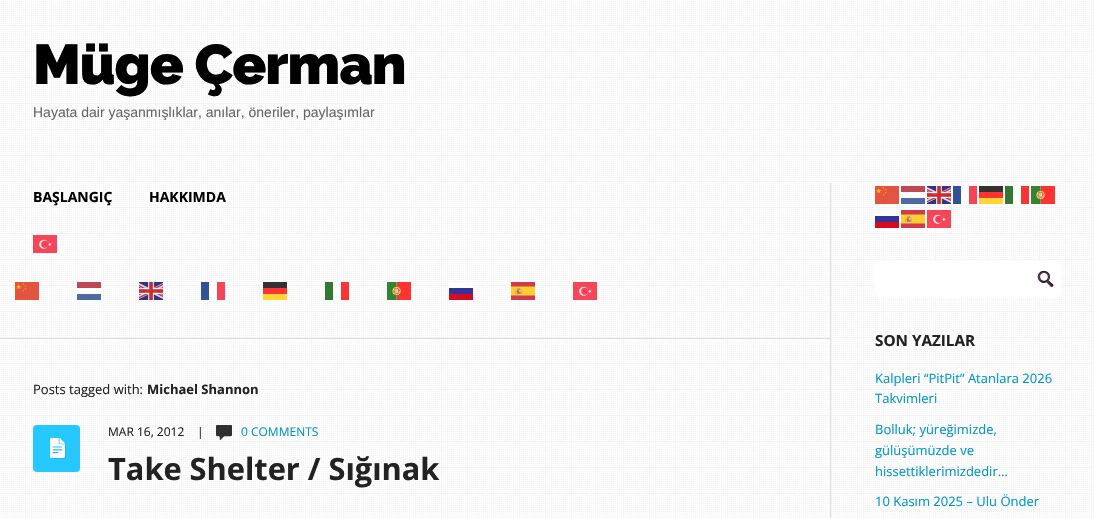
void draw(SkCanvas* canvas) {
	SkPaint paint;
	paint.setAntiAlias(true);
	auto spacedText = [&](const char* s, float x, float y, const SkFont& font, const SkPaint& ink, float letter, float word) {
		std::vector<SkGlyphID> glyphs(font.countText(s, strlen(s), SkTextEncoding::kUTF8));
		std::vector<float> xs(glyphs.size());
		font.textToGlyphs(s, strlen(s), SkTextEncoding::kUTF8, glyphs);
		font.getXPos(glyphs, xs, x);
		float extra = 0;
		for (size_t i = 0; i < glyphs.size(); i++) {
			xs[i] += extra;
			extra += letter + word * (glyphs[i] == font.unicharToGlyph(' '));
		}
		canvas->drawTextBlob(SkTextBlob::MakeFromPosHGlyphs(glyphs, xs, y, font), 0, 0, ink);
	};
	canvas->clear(0xffffffff);
	canvas->drawImageRect(SkImages::DeferredFromEncodedData(SkData::MakeFromFileName("img1.png")), SkRect::MakeXYWH(0, 0, 1094, 518), SkSamplingOptions());
	SkFont f1(fontMgr->matchFamilyStyle("Raleway", SkFontStyle(900, SkFontStyle::kNormal_Width, SkFontStyle::kUpright_Slant)), 56);
	f1.setSubpixel(true);
	paint.setColor(0xff000000);
	spacedText("Müge Çerman", 33, 84, f1, paint, -1, 0);
	SkFont f2(fontMgr->matchFamilyStyle("Liberation Sans", SkFontStyle::Normal()), 14);
	f2.setSubpixel(true);
	paint.setColor(0xff666666);
	canvas->drawString("Hayata dair yaşanmışlıklar, anılar, öneriler, paylaşımlar", 33, 117, f2, paint);
	paint.setColor(0xffdddddd);
	canvas->drawRect(SkRect::MakeXYWH(830, 183, 1, 335), paint);
	canvas->drawRect(SkRect::MakeXYWH(0, 338, 830, 1), paint);
	SkFont f3(fontMgr->matchFamilyStyle("Open Sans", SkFontStyle::Bold()), 14);
	f3.setSubpixel(true);
	paint.setColor(0xff000000);
	canvas->drawString("BAŞLANGIÇ", 33, 202, f3, paint);
	canvas->drawString("HAKKIMDA", 149, 202, f3, paint);
	canvas->drawImageRect(SkImages::DeferredFromEncodedData(SkData::MakeFromFileName("img2.png")), SkRect::MakeXYWH(33, 235, 24, 18), SkSamplingOptions());
	canvas->drawImageRect(SkImages::DeferredFromEncodedData(SkData::MakeFromFileName("img3.png")), SkRect::MakeXYWH(15, 282, 24, 18), SkSamplingOptions());
	paint.setColor(0xffbe4953);
	canvas->drawRect(SkRect::MakeXYWH(77, 282, 24, 6), paint);
	paint.setColor(0xccffffff);
	canvas->drawRect(SkRect::MakeXYWH(77, 288, 24, 6), paint);
	paint.setColor(0xff4d6ba2);
	canvas->drawRect(SkRect::MakeXYWH(77, 294, 24, 6), paint);
	canvas->drawImageRect(SkImages::DeferredFromEncodedData(SkData::MakeFromFileName("img4.png")), SkRect::MakeXYWH(139, 282, 24, 18), SkSamplingOptions());
	paint.setColor(0xff335198);
	canvas->drawRect(SkRect::MakeXYWH(201, 282, 8, 18), paint);
	paint.setColor(0xccffffff);
	canvas->drawRect(SkRect::MakeXYWH(209, 282, 8, 18), paint);
	paint.setColor(0xfff54659);
	canvas->drawRect(SkRect::MakeXYWH(217, 282, 8, 18), paint);
	paint.setColor(0xcc000000);
	canvas->drawRect(SkRect::MakeXYWH(263, 282, 24, 6), paint);
	paint.setColor(0xccff0000);
	canvas->drawRect(SkRect::MakeXYWH(263, 288, 24, 6), paint);
	paint.setColor(0xccffcc00);
	canvas->drawRect(SkRect::MakeXYWH(263, 294, 24, 6), paint);
	paint.setColor(0xff337833);
	canvas->drawRect(SkRect::MakeXYWH(325, 282, 8, 18), paint);
	paint.setColor(0xccffffff);
	canvas->drawRect(SkRect::MakeXYWH(333, 282, 8, 18), paint);
	paint.setColor(0xfffc3333);
	canvas->drawRect(SkRect::MakeXYWH(341, 282, 8, 18), paint);
	canvas->drawImageRect(SkImages::DeferredFromEncodedData(SkData::MakeFromFileName("img5.png")), SkRect::MakeXYWH(387, 282, 24, 18), SkSamplingOptions());
	paint.setColor(0xccffffff);
	canvas->drawRect(SkRect::MakeXYWH(449, 282, 24, 6), paint);
	paint.setColor(0xff343498);
	canvas->drawRect(SkRect::MakeXYWH(449, 288, 24, 6), paint);
	paint.setColor(0xffd60b1f);
	canvas->drawRect(SkRect::MakeXYWH(449, 294, 24, 6), paint);
	canvas->drawImageRect(SkImages::DeferredFromEncodedData(SkData::MakeFromFileName("img6.png")), SkRect::MakeXYWH(511, 282, 24, 18), SkSamplingOptions());
	canvas->drawImageRect(SkImages::DeferredFromEncodedData(SkData::MakeFromFileName("img7.png")), SkRect::MakeXYWH(573, 282, 24, 18), SkSamplingOptions());
	SkFont f4(fontMgr->matchFamilyStyle("Open Sans", SkFontStyle::Normal()), 13);
	f4.setSubpixel(true);
	paint.setColor(0xff222222);
	canvas->drawString("Posts tagged with:", 33, 394, f4, paint);
	SkFont f5(fontMgr->matchFamilyStyle("Open Sans", SkFontStyle::Bold()), 13);
	f5.setSubpixel(true);
	canvas->drawString("Michael Shannon", 147, 394, f5, paint);
	paint.setColor(0xff26c9ff);
	canvas->drawRoundRect(SkRect::MakeXYWH(33, 425, 47, 47), 4, 4, paint);
	canvas->drawImageRect(SkImages::DeferredFromEncodedData(SkData::MakeFromFileName("img8.png")), SkRect::MakeXYWH(50, 438, 16, 21), SkSamplingOptions());
	SkFont f6(fontMgr->matchFamilyStyle("Open Sans", SkFontStyle::Normal()), 12);
	f6.setSubpixel(true);
	paint.setColor(0xff222222);
	canvas->drawString("MAR 16, 2012", 108, 436, f6, paint);
	canvas->drawString("|", 197, 436, f6, paint);
	canvas->drawImageRect(SkImages::DeferredFromEncodedData(SkData::MakeFromFileName("img9.png")), SkRect::MakeXYWH(216, 425, 16, 15), SkSamplingOptions());
	paint.setColor(0xff0098cb);
	canvas->drawString("0 COMMENTS", 241, 436, f6, paint);
	SkFont f7(fontMgr->matchFamilyStyle("Open Sans", SkFontStyle::Bold()), 30.75);
	f7.setSubpixel(true);
	paint.setColor(0xff222222);
	canvas->drawString("Take Shelter / Sığınak", 108, 480, f7, paint);
	canvas->drawImageRect(SkImages::DeferredFromEncodedData(SkData::MakeFromFileName("img10.png")), SkRect::MakeXYWH(875, 186, 24, 18), SkSamplingOptions());
	paint.setColor(0xffbe4953);
	canvas->drawRect(SkRect::MakeXYWH(901, 186, 24, 6), paint);
	canvas->drawImageRect(SkImages::DeferredFromEncodedData(SkData::MakeFromFileName("img11.png")), SkRect::MakeXYWH(927, 186, 24, 18), SkSamplingOptions());
	paint.setColor(0xff335198);
	canvas->drawRect(SkRect::MakeXYWH(953, 186, 8, 18), paint);
	paint.setColor(0xccffffff);
	canvas->drawRect(SkRect::MakeXYWH(961, 186, 7, 18), paint);
	paint.setColor(0xfff54659);
	canvas->drawRect(SkRect::MakeXYWH(969, 186, 8, 18), paint);
	paint.setColor(0xcc000000);
	canvas->drawRect(SkRect::MakeXYWH(979, 186, 24, 6), paint);
	paint.setColor(0xff337833);
	canvas->drawRect(SkRect::MakeXYWH(1005, 186, 8, 18), paint);
	paint.setColor(0xccffffff);
	canvas->drawRect(SkRect::MakeXYWH(1013, 186, 7, 18), paint);
	paint.setColor(0xfffc3333);
	canvas->drawRect(SkRect::MakeXYWH(1021, 186, 8, 18), paint);
	canvas->drawImageRect(SkImages::DeferredFromEncodedData(SkData::MakeFromFileName("img12.png")), SkRect::MakeXYWH(1031, 186, 24, 18), SkSamplingOptions());
	paint.setColor(0xccffffff);
	canvas->drawRect(SkRect::MakeXYWH(901, 192, 24, 6), paint);
	paint.setColor(0xccff0000);
	canvas->drawRect(SkRect::MakeXYWH(979, 192, 24, 6), paint);
	paint.setColor(0xff4d6ba2);
	canvas->drawRect(SkRect::MakeXYWH(901, 198, 24, 6), paint);
	paint.setColor(0xccffcc00);
	canvas->drawRect(SkRect::MakeXYWH(979, 198, 24, 6), paint);
	paint.setColor(0xccffffff);
	canvas->drawRect(SkRect::MakeXYWH(875, 210, 24, 6), paint);
	canvas->drawImageRect(SkImages::DeferredFromEncodedData(SkData::MakeFromFileName("img13.png")), SkRect::MakeXYWH(901, 210, 24, 18), SkSamplingOptions());
	canvas->drawImageRect(SkImages::DeferredFromEncodedData(SkData::MakeFromFileName("img14.png")), SkRect::MakeXYWH(927, 210, 24, 18), SkSamplingOptions());
	paint.setColor(0xff343498);
	canvas->drawRect(SkRect::MakeXYWH(875, 216, 24, 6), paint);
	paint.setColor(0xffd60b1f);
	canvas->drawRect(SkRect::MakeXYWH(875, 222, 24, 6), paint);
	paint.setColor(0xffffffff);
	canvas->drawRoundRect(SkRect::MakeXYWH(875, 261, 186, 37), 6, 6, paint);
	canvas->drawImageRect(SkImages::DeferredFromEncodedData(SkData::MakeFromFileName("img15.png")), SkRect::MakeXYWH(1037, 270, 17, 17), SkSamplingOptions());
	paint.setStroke(true);
	paint.setStrokeWidth(1);
	canvas->drawRoundRect(SkRect::MakeXYWH(875.5, 261.5, 185, 36), 5.5, 5.5, paint);
	SkFont f8(fontMgr->matchFamilyStyle("Open Sans", SkFontStyle::Bold()), 15.25);
	f8.setSubpixel(true);
	paint.setStroke(false);
	paint.setColor(0xff222222);
	canvas->drawString("SON YAZILAR", 875, 346, f8, paint);
	paint.setColor(0xff0098cb);
	canvas->drawString("Kalpleri “PitPit” Atanlara 2026", 875, 383, f4, paint);
	canvas->drawString("Takvimleri", 875, 403, f4, paint);
	canvas->drawString("Bolluk; yüreğimizde,", 875, 434, f4, paint);
	canvas->drawString("gülüşümüzde ve", 875, 455, f4, paint);
	canvas->drawString("hissettiklerimizdedir…", 875, 476, f4, paint);
	canvas->drawString("10 Kasım 2025 – Ulu Önder", 875, 506, f4, paint);
}
